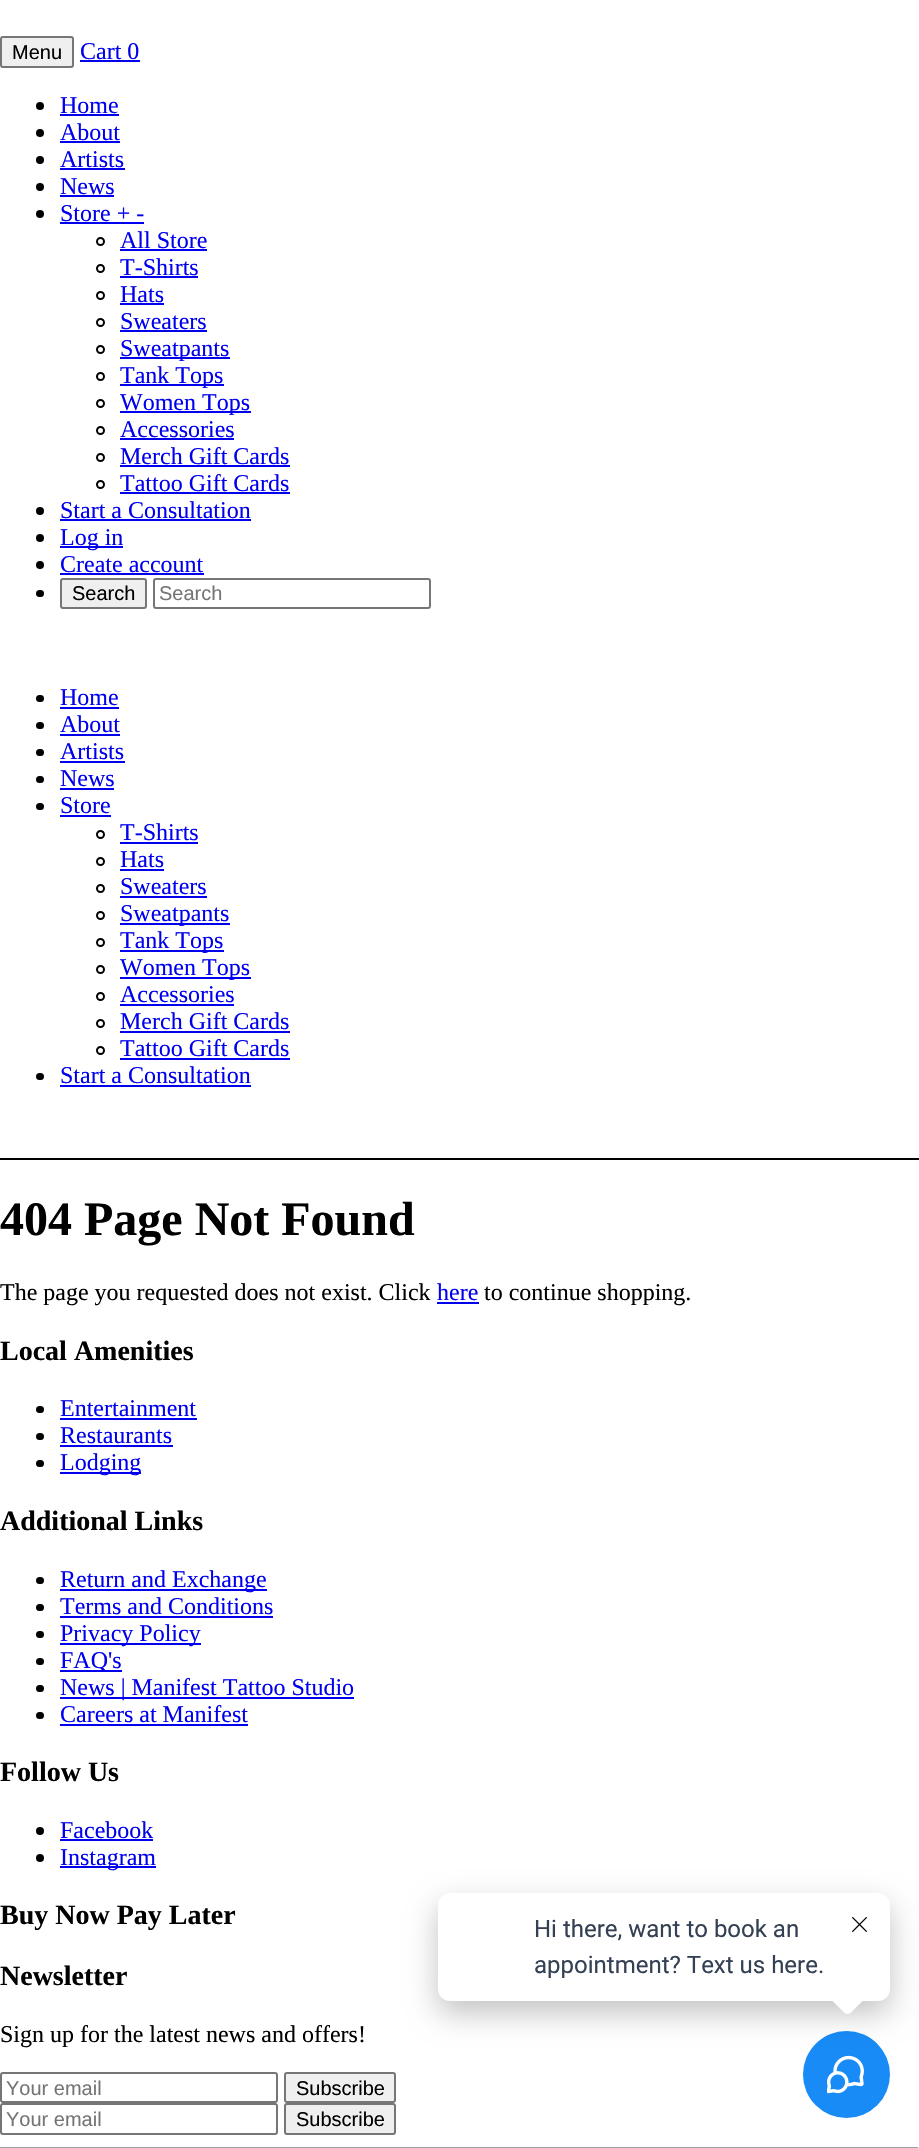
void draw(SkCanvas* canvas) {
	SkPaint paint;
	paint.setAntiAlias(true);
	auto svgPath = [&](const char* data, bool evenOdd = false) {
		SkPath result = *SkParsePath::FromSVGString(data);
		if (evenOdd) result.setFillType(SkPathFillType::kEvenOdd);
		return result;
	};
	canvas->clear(0xffffffff);
	paint.setColor(0xffefefef);
	canvas->drawRoundRect(SkRect::MakeXYWH(1, 37, 72, 30), 2, 2, paint);
	paint.setStroke(true);
	paint.setStrokeWidth(2);
	paint.setColor(0xff767676);
	canvas->drawRoundRect(SkRect::MakeXYWH(1, 37, 72, 30), 2, 2, paint);
	SkFont f1(fontMgr->matchFamilyStyle("Liberation Sans", SkFontStyle::Normal()), 20);
	f1.setSubpixel(true);
	paint.setStroke(false);
	paint.setColor(0xff000000);
	canvas->drawString("Menu", 12, 59, f1, paint);
	SkFont f2(fontMgr->matchFamilyStyle("Liberation Serif", SkFontStyle::Normal()), 24);
	f2.setSubpixel(true);
	paint.setColor(0xff0000ee);
	canvas->drawString("Cart 0", 80, 59, f2, paint);
	canvas->drawRect(SkRect::MakeXYWH(80, 60, 60, 2), paint);
	paint.setColor(0xff000000);
	canvas->drawCircle(40, 106, 4, paint);
	paint.setColor(0xff0000ee);
	canvas->drawString("Home", 60, 113, f2, paint);
	canvas->drawRect(SkRect::MakeXYWH(60, 114, 59, 2), paint);
	paint.setColor(0xff000000);
	canvas->drawCircle(40, 133, 4, paint);
	paint.setColor(0xff0000ee);
	canvas->drawString("About", 60, 140, f2, paint);
	canvas->drawRect(SkRect::MakeXYWH(60, 141, 60, 2), paint);
	paint.setColor(0xff000000);
	canvas->drawCircle(40, 160, 4, paint);
	paint.setColor(0xff0000ee);
	canvas->drawString("Artists", 60, 167, f2, paint);
	canvas->drawRect(SkRect::MakeXYWH(60, 168, 65, 2), paint);
	paint.setColor(0xff000000);
	canvas->drawCircle(40, 187, 4, paint);
	paint.setColor(0xff0000ee);
	canvas->drawString("News", 60, 194, f2, paint);
	canvas->drawRect(SkRect::MakeXYWH(60, 195, 54, 2), paint);
	paint.setColor(0xff000000);
	canvas->drawCircle(40, 214, 4, paint);
	paint.setColor(0xff0000ee);
	canvas->drawString("Store + -", 60, 221, f2, paint);
	canvas->drawRect(SkRect::MakeXYWH(60, 222, 84, 2), paint);
	paint.setStroke(true);
	paint.setColor(0xff000000);
	canvas->drawCircle(100.5, 241.5, 3.5, paint);
	paint.setStroke(false);
	paint.setColor(0xff0000ee);
	canvas->drawString("All Store", 120, 248, f2, paint);
	canvas->drawRect(SkRect::MakeXYWH(120, 249, 87, 2), paint);
	paint.setStroke(true);
	paint.setColor(0xff000000);
	canvas->drawCircle(100.5, 268.5, 3.5, paint);
	paint.setStroke(false);
	paint.setColor(0xff0000ee);
	canvas->drawString("T-Shirts", 120, 275, f2, paint);
	canvas->drawRect(SkRect::MakeXYWH(120, 276, 78, 2), paint);
	paint.setStroke(true);
	paint.setColor(0xff000000);
	canvas->drawCircle(100.5, 295.5, 3.5, paint);
	paint.setStroke(false);
	paint.setColor(0xff0000ee);
	canvas->drawString("Hats", 120, 302, f2, paint);
	canvas->drawRect(SkRect::MakeXYWH(120, 303, 44, 2), paint);
	paint.setStroke(true);
	paint.setColor(0xff000000);
	canvas->drawCircle(100.5, 322.5, 3.5, paint);
	paint.setStroke(false);
	paint.setColor(0xff0000ee);
	canvas->drawString("Sweaters", 120, 329, f2, paint);
	canvas->drawRect(SkRect::MakeXYWH(120, 330, 87, 2), paint);
	paint.setStroke(true);
	paint.setColor(0xff000000);
	canvas->drawCircle(100.5, 349.5, 3.5, paint);
	paint.setStroke(false);
	paint.setColor(0xff0000ee);
	canvas->drawRect(SkRect::MakeXYWH(120, 357, 110, 2), paint);
	canvas->drawString("Sweatpants", 120, 356, f2, paint);
	paint.setStroke(true);
	paint.setColor(0xff000000);
	canvas->drawCircle(100.5, 376.5, 3.5, paint);
	paint.setStroke(false);
	paint.setColor(0xff0000ee);
	canvas->drawRect(SkRect::MakeXYWH(120, 384, 104, 2), paint);
	canvas->drawString("Tank Tops", 120, 383, f2, paint);
	paint.setStroke(true);
	paint.setColor(0xff000000);
	canvas->drawCircle(100.5, 403.5, 3.5, paint);
	paint.setStroke(false);
	paint.setColor(0xff0000ee);
	canvas->drawRect(SkRect::MakeXYWH(120, 411, 131, 2), paint);
	canvas->drawString("Women Tops", 120, 410, f2, paint);
	paint.setStroke(true);
	paint.setColor(0xff000000);
	canvas->drawCircle(100.5, 430.5, 3.5, paint);
	paint.setStroke(false);
	paint.setColor(0xff0000ee);
	canvas->drawString("Accessories", 120, 437, f2, paint);
	canvas->drawRect(SkRect::MakeXYWH(120, 438, 114, 2), paint);
	paint.setStroke(true);
	paint.setColor(0xff000000);
	canvas->drawCircle(100.5, 457.5, 3.5, paint);
	paint.setStroke(false);
	paint.setColor(0xff0000ee);
	canvas->drawString("Merch Gift Cards", 120, 464, f2, paint);
	canvas->drawRect(SkRect::MakeXYWH(120, 465, 170, 2), paint);
	paint.setStroke(true);
	paint.setColor(0xff000000);
	canvas->drawCircle(100.5, 484.5, 3.5, paint);
	paint.setStroke(false);
	paint.setColor(0xff0000ee);
	canvas->drawString("Tattoo Gift Cards", 120, 491, f2, paint);
	canvas->drawRect(SkRect::MakeXYWH(120, 492, 170, 2), paint);
	paint.setColor(0xff000000);
	canvas->drawCircle(40, 511, 4, paint);
	paint.setColor(0xff0000ee);
	canvas->drawString("Start a Consultation", 60, 518, f2, paint);
	canvas->drawRect(SkRect::MakeXYWH(60, 519, 191, 2), paint);
	paint.setColor(0xff000000);
	canvas->drawCircle(40, 538, 4, paint);
	paint.setColor(0xff0000ee);
	canvas->drawRect(SkRect::MakeXYWH(60, 546, 63, 2), paint);
	canvas->drawString("Log in", 60, 545, f2, paint);
	paint.setColor(0xff000000);
	canvas->drawCircle(40, 565, 4, paint);
	paint.setColor(0xff0000ee);
	canvas->drawString("Create account", 60, 572, f2, paint);
	canvas->drawRect(SkRect::MakeXYWH(60, 573, 144, 2), paint);
	paint.setColor(0xff000000);
	canvas->drawRoundRect(SkRect::MakeXYWH(36, 590, 8, 7), 3.5, 3.5, paint);
	paint.setColor(0xffefefef);
	canvas->drawRoundRect(SkRect::MakeXYWH(61, 579, 85, 29), 2, 2, paint);
	paint.setStroke(true);
	paint.setColor(0xff767676);
	canvas->drawRoundRect(SkRect::MakeXYWH(61, 579, 85, 29), 2, 2, paint);
	paint.setStroke(false);
	paint.setColor(0xff000000);
	canvas->drawString("Search", 72, 600, f1, paint);
	paint.setStroke(true);
	paint.setColor(0xff767676);
	canvas->drawRoundRect(SkRect::MakeXYWH(154, 579, 276, 29), 2, 2, paint);
	paint.setStroke(false);
	paint.setColor(0xff757575);
	canvas->drawString("Search", 159, 600, f1, paint);
	paint.setColor(0xff000000);
	canvas->drawRect(SkRect::MakeXYWH(0, 1158, 919, 2), paint);
	canvas->drawRoundRect(SkRect::MakeXYWH(36, 695, 8, 7), 3.5, 3.5, paint);
	paint.setColor(0xff0000ee);
	canvas->drawString("Home", 60, 705, f2, paint);
	canvas->drawRect(SkRect::MakeXYWH(60, 707, 59, 2), paint);
	paint.setColor(0xff000000);
	canvas->drawRoundRect(SkRect::MakeXYWH(36, 722, 8, 7), 3.5, 3.5, paint);
	paint.setColor(0xff0000ee);
	canvas->drawString("About", 60, 732, f2, paint);
	canvas->drawRect(SkRect::MakeXYWH(60, 734, 60, 2), paint);
	paint.setColor(0xff000000);
	canvas->drawRoundRect(SkRect::MakeXYWH(36, 749, 8, 7), 3.5, 3.5, paint);
	paint.setColor(0xff0000ee);
	canvas->drawString("Artists", 60, 759, f2, paint);
	canvas->drawRect(SkRect::MakeXYWH(60, 761, 65, 2), paint);
	paint.setColor(0xff000000);
	canvas->drawRoundRect(SkRect::MakeXYWH(36, 776, 8, 7), 3.5, 3.5, paint);
	paint.setColor(0xff0000ee);
	canvas->drawString("News", 60, 786, f2, paint);
	canvas->drawRect(SkRect::MakeXYWH(60, 788, 54, 2), paint);
	paint.setColor(0xff000000);
	canvas->drawRoundRect(SkRect::MakeXYWH(36, 803, 8, 7), 3.5, 3.5, paint);
	paint.setColor(0xff0000ee);
	canvas->drawString("Store", 60, 813, f2, paint);
	canvas->drawRect(SkRect::MakeXYWH(60, 815, 51, 2), paint);
	paint.setStroke(true);
	paint.setColor(0xff000000);
	canvas->drawCircle(100.5, 834.5, 3.5, paint);
	paint.setStroke(false);
	paint.setColor(0xff0000ee);
	canvas->drawString("T-Shirts", 120, 840, f2, paint);
	canvas->drawRect(SkRect::MakeXYWH(120, 842, 78, 2), paint);
	paint.setStroke(true);
	paint.setColor(0xff000000);
	canvas->drawCircle(100.5, 861.5, 3.5, paint);
	paint.setStroke(false);
	paint.setColor(0xff0000ee);
	canvas->drawString("Hats", 120, 867, f2, paint);
	canvas->drawRect(SkRect::MakeXYWH(120, 869, 44, 2), paint);
	paint.setStroke(true);
	paint.setColor(0xff000000);
	canvas->drawCircle(100.5, 888.5, 3.5, paint);
	paint.setStroke(false);
	paint.setColor(0xff0000ee);
	canvas->drawString("Sweaters", 120, 894, f2, paint);
	canvas->drawRect(SkRect::MakeXYWH(120, 896, 87, 2), paint);
	paint.setStroke(true);
	paint.setColor(0xff000000);
	canvas->drawCircle(100.5, 915.5, 3.5, paint);
	paint.setStroke(false);
	paint.setColor(0xff0000ee);
	canvas->drawRect(SkRect::MakeXYWH(120, 923, 110, 2), paint);
	canvas->drawString("Sweatpants", 120, 921, f2, paint);
	paint.setStroke(true);
	paint.setColor(0xff000000);
	canvas->drawCircle(100.5, 942.5, 3.5, paint);
	paint.setStroke(false);
	paint.setColor(0xff0000ee);
	canvas->drawRect(SkRect::MakeXYWH(120, 950, 104, 2), paint);
	canvas->drawString("Tank Tops", 120, 948, f2, paint);
	paint.setStroke(true);
	paint.setColor(0xff000000);
	canvas->drawCircle(100.5, 969.5, 3.5, paint);
	paint.setStroke(false);
	paint.setColor(0xff0000ee);
	canvas->drawRect(SkRect::MakeXYWH(120, 977, 131, 2), paint);
	canvas->drawString("Women Tops", 120, 975, f2, paint);
	paint.setStroke(true);
	paint.setColor(0xff000000);
	canvas->drawCircle(100.5, 996.5, 3.5, paint);
	paint.setStroke(false);
	paint.setColor(0xff0000ee);
	canvas->drawString("Accessories", 120, 1002, f2, paint);
	canvas->drawRect(SkRect::MakeXYWH(120, 1004, 114, 2), paint);
	paint.setStroke(true);
	paint.setColor(0xff000000);
	canvas->drawCircle(100.5, 1023.5, 3.5, paint);
	paint.setStroke(false);
	paint.setColor(0xff0000ee);
	canvas->drawString("Merch Gift Cards", 120, 1029, f2, paint);
	canvas->drawRect(SkRect::MakeXYWH(120, 1031, 170, 2), paint);
	paint.setStroke(true);
	paint.setColor(0xff000000);
	canvas->drawCircle(100.5, 1050.5, 3.5, paint);
	paint.setStroke(false);
	paint.setColor(0xff0000ee);
	canvas->drawString("Tattoo Gift Cards", 120, 1056, f2, paint);
	canvas->drawRect(SkRect::MakeXYWH(120, 1058, 170, 2), paint);
	paint.setColor(0xff000000);
	canvas->drawRoundRect(SkRect::MakeXYWH(36, 1073, 8, 7), 3.5, 3.5, paint);
	paint.setColor(0xff0000ee);
	canvas->drawString("Start a Consultation", 60, 1083, f2, paint);
	canvas->drawRect(SkRect::MakeXYWH(60, 1085, 191, 2), paint);
	SkFont f3(fontMgr->matchFamilyStyle("Liberation Serif", SkFontStyle::Bold()), 48);
	f3.setSubpixel(true);
	paint.setColor(0xff000000);
	canvas->drawString("404 Page Not Found", 0, 1235, f3, paint);
	canvas->drawString("The page you requested does not exist. Click", 0, 1300, f2, paint);
	paint.setColor(0xff0000ee);
	canvas->drawString("here", 437, 1300, f2, paint);
	canvas->drawRect(SkRect::MakeXYWH(437, 1302, 42, 2), paint);
	paint.setColor(0xff000000);
	canvas->drawString("to continue shopping.", 484, 1300, f2, paint);
	SkFont f4(fontMgr->matchFamilyStyle("Liberation Serif", SkFontStyle::Bold()), 28);
	f4.setSubpixel(true);
	canvas->drawString("Local Amenities", 0, 1360, f4, paint);
	canvas->drawRoundRect(SkRect::MakeXYWH(36, 1406, 8, 7), 3.5, 3.5, paint);
	paint.setColor(0xff0000ee);
	canvas->drawString("Entertainment", 60, 1416, f2, paint);
	canvas->drawRect(SkRect::MakeXYWH(60, 1418, 137, 2), paint);
	paint.setColor(0xff000000);
	canvas->drawRoundRect(SkRect::MakeXYWH(36, 1433, 8, 7), 3.5, 3.5, paint);
	paint.setColor(0xff0000ee);
	canvas->drawString("Restaurants", 60, 1443, f2, paint);
	canvas->drawRect(SkRect::MakeXYWH(60, 1445, 113, 2), paint);
	paint.setColor(0xff000000);
	canvas->drawRoundRect(SkRect::MakeXYWH(36, 1460, 8, 7), 3.5, 3.5, paint);
	paint.setColor(0xff0000ee);
	canvas->drawRect(SkRect::MakeXYWH(60, 1472, 81, 2), paint);
	canvas->drawString("Lodging", 60, 1470, f2, paint);
	paint.setColor(0xff000000);
	canvas->drawString("Additional Links", 0, 1530, f4, paint);
	canvas->drawRoundRect(SkRect::MakeXYWH(36, 1577, 8, 7), 3.5, 3.5, paint);
	paint.setColor(0xff0000ee);
	canvas->drawRect(SkRect::MakeXYWH(60, 1589, 207, 2), paint);
	canvas->drawString("Return and Exchange", 60, 1587, f2, paint);
	paint.setColor(0xff000000);
	canvas->drawRoundRect(SkRect::MakeXYWH(36, 1604, 8, 7), 3.5, 3.5, paint);
	paint.setColor(0xff0000ee);
	canvas->drawString("Terms and Conditions", 60, 1614, f2, paint);
	canvas->drawRect(SkRect::MakeXYWH(60, 1616, 213, 2), paint);
	paint.setColor(0xff000000);
	canvas->drawRoundRect(SkRect::MakeXYWH(36, 1631, 8, 7), 3.5, 3.5, paint);
	paint.setColor(0xff0000ee);
	canvas->drawRect(SkRect::MakeXYWH(60, 1643, 141, 2), paint);
	canvas->drawString("Privacy Policy", 60, 1641, f2, paint);
	paint.setColor(0xff000000);
	canvas->drawRoundRect(SkRect::MakeXYWH(36, 1658, 8, 7), 3.5, 3.5, paint);
	paint.setColor(0xff0000ee);
	canvas->drawRect(SkRect::MakeXYWH(60, 1670, 62, 2), paint);
	canvas->drawString("FAQ's", 60, 1668, f2, paint);
	paint.setColor(0xff000000);
	canvas->drawRoundRect(SkRect::MakeXYWH(36, 1685, 8, 7), 3.5, 3.5, paint);
	paint.setColor(0xff0000ee);
	canvas->drawRect(SkRect::MakeXYWH(60, 1697, 294, 2), paint);
	canvas->drawString("News | Manifest Tattoo Studio", 60, 1695, f2, paint);
	paint.setColor(0xff000000);
	canvas->drawRoundRect(SkRect::MakeXYWH(36, 1712, 8, 7), 3.5, 3.5, paint);
	paint.setColor(0xff0000ee);
	canvas->drawString("Careers at Manifest", 60, 1722, f2, paint);
	canvas->drawRect(SkRect::MakeXYWH(60, 1724, 188, 2), paint);
	paint.setColor(0xff000000);
	canvas->drawString("Follow Us", 0, 1781, f4, paint);
	canvas->drawCircle(40, 1831, 4, paint);
	paint.setColor(0xff0000ee);
	canvas->drawString("Facebook", 60, 1838, f2, paint);
	canvas->drawRect(SkRect::MakeXYWH(60, 1839, 93, 2), paint);
	paint.setColor(0xff000000);
	canvas->drawCircle(40, 1858, 4, paint);
	paint.setColor(0xff0000ee);
	canvas->drawRect(SkRect::MakeXYWH(60, 1866, 96, 2), paint);
	canvas->drawString("Instagram", 60, 1865, f2, paint);
	paint.setColor(0xff000000);
	canvas->drawString("Buy Now Pay Later", 0, 1924, f4, paint);
	canvas->drawString("Newsletter", 0, 1985, f4, paint);
	canvas->drawString("Sign up for the latest news and offers!", 0, 2042, f2, paint);
	paint.setStroke(true);
	paint.setColor(0xff767676);
	canvas->drawRoundRect(SkRect::MakeXYWH(1, 2073, 276, 29), 2, 2, paint);
	paint.setStroke(false);
	paint.setColor(0xff757575);
	canvas->drawString("Your email", 6, 2095, f1, paint);
	paint.setColor(0xffefefef);
	canvas->drawRoundRect(SkRect::MakeXYWH(285, 2073, 110, 29), 2, 2, paint);
	paint.setStroke(true);
	paint.setColor(0xff767676);
	canvas->drawRoundRect(SkRect::MakeXYWH(285, 2073, 110, 29), 2, 2, paint);
	paint.setStroke(false);
	paint.setColor(0xff000000);
	canvas->drawString("Subscribe", 296, 2095, f1, paint);
	paint.setStroke(true);
	paint.setColor(0xff767676);
	canvas->drawRoundRect(SkRect::MakeXYWH(1, 2104, 276, 30), 2, 2, paint);
	paint.setStroke(false);
	paint.setColor(0xff757575);
	canvas->drawString("Your email", 6, 2126, f1, paint);
	paint.setColor(0xffefefef);
	canvas->drawRoundRect(SkRect::MakeXYWH(285, 2104, 110, 30), 2, 2, paint);
	paint.setStroke(true);
	paint.setColor(0xff767676);
	canvas->drawRoundRect(SkRect::MakeXYWH(285, 2104, 110, 30), 2, 2, paint);
	paint.setStroke(false);
	paint.setColor(0xff000000);
	canvas->drawString("Subscribe", 296, 2126, f1, paint);
	paint.setColor(0xff9f9f9f);
	canvas->drawRect(SkRect::MakeXYWH(0, 2147, 919, 1), paint);
	paint.setColor(0xffeeeeee);
	canvas->drawRect(SkRect::MakeXYWH(918, 2147, 1, 1), paint);
	paint.setColor(0xff188bf6);
	canvas->drawCircle(846.5, 2074.5, 43.5, paint);
	canvas->drawImageRect(SkImages::DeferredFromEncodedData(SkData::MakeFromFileName("img2.png")), SkRect::MakeXYWH(827, 2055, 37, 39), SkSamplingOptions());
	paint.setColor(0x3d000000);
	paint.setMaskFilter(SkMaskFilter::MakeBlur(kNormal_SkBlurStyle, 15));
	canvas->drawRoundRect(SkRect::MakeXYWH(438, 1905, 452, 108), 12, 12, paint);
	paint.setMaskFilter(nullptr);
	paint.setColor(0xffffffff);
	canvas->drawRoundRect(SkRect::MakeXYWH(438, 1893, 452, 108), 12, 12, paint);
	SkFont f5(fontMgr->matchFamilyStyle("Roboto", SkFontStyle::Normal()), 24);
	f5.setSubpixel(true);
	paint.setColor(0xff344054);
	canvas->drawString("Hi there, want to book an", 534, 1937, f5, paint);
	canvas->drawString("appointment? Text us here.", 534, 1973, f5, paint);
	paint.setColor(0xffffffff);
	canvas->drawPath(svgPath("M851.5 1978L864.5 1991C867 1993 867 1997 864.5 1999L851.5 2012C849.5 2014.5 845.5 2014.5 843.5 2012L830.5 1999C828 1997 828 1993 830.5 1991L843.5 1978C845.5 1975.5 849.5 1975.5 851.5 1978Z"), paint);
	canvas->drawImageRect(SkImages::DeferredFromEncodedData(SkData::MakeFromFileName("img1.png")), SkRect::MakeXYWH(852, 1917, 15, 15), SkSamplingOptions());
}
